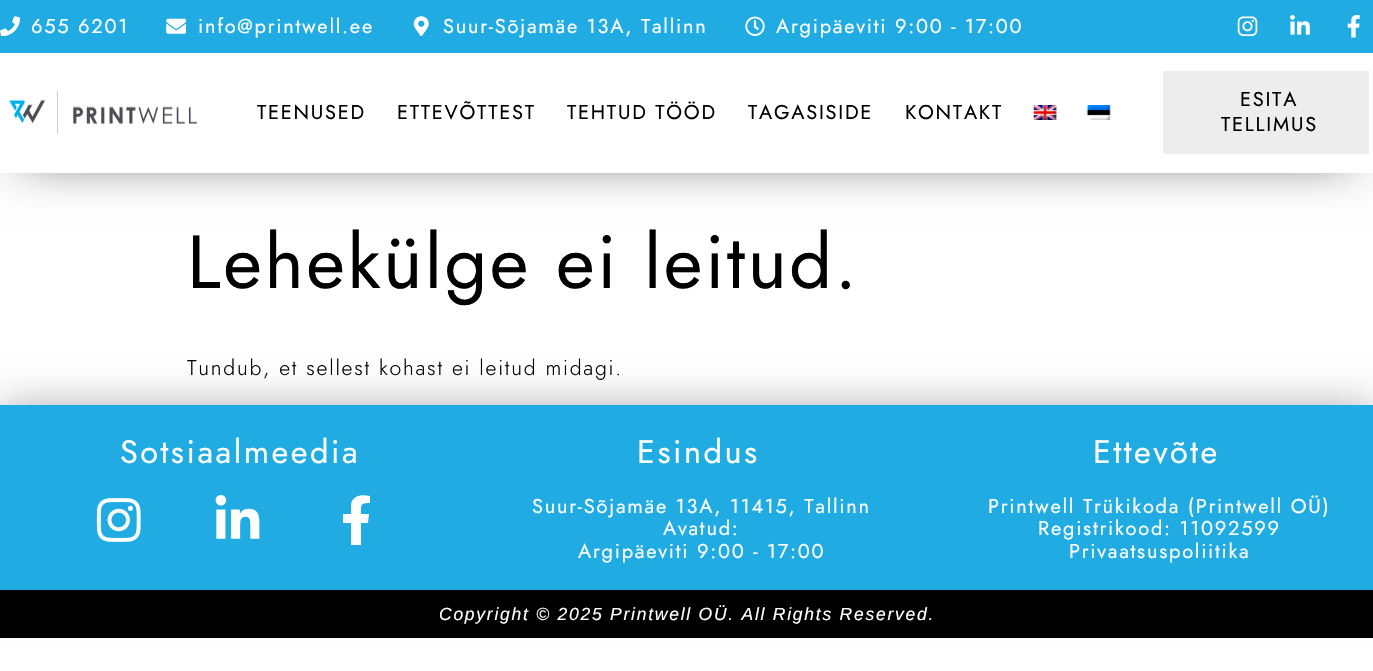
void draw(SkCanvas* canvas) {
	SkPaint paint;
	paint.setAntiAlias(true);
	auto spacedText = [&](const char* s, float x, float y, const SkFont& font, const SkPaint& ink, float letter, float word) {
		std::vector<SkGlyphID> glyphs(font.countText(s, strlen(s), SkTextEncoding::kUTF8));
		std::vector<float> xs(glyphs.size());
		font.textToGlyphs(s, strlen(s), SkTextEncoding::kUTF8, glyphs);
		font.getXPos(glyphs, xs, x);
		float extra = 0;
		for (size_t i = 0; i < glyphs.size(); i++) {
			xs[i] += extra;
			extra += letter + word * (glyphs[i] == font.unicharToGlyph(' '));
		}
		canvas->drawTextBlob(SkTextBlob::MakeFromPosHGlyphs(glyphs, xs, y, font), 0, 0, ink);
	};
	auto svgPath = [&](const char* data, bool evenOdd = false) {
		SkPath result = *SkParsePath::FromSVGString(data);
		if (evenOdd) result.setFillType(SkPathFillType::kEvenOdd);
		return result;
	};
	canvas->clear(0xffffffff);
	paint.setColor(0x1a000000);
	paint.setMaskFilter(SkMaskFilter::MakeBlur(kNormal_SkBlurStyle, 19));
	canvas->drawRect(SkRect::MakeXYWH(0, 6, 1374, 173), paint);
	paint.setMaskFilter(nullptr);
	paint.setColor(0xff20ace3);
	canvas->drawRect(SkRect::MakeXYWH(0, 0, 1373, 53), paint);
	canvas->drawImageRect(SkImages::DeferredFromEncodedData(SkData::MakeFromFileName("img1.png")), SkRect::MakeXYWH(0, 16, 20, 20), SkSamplingOptions());
	SkFont f1(fontMgr->matchFamilyStyle("Jost", SkFontStyle::Normal()), 20);
	f1.setSubpixel(true);
	paint.setColor(0xffffffff);
	spacedText("655 6201", 31, 33, f1, paint, 1.75, 0);
	canvas->drawImageRect(SkImages::DeferredFromEncodedData(SkData::MakeFromFileName("img2.png")), SkRect::MakeXYWH(166, 18, 20, 16), SkSamplingOptions());
	spacedText("info@printwell.ee", 198, 33, f1, paint, 1.75, 0);
	canvas->drawImageRect(SkImages::DeferredFromEncodedData(SkData::MakeFromFileName("img3.png")), SkRect::MakeXYWH(413, 16, 16, 20), SkSamplingOptions());
	spacedText("Suur-Sõjamäe 13A, Tallinn", 443, 33, f1, paint, 1.75, 0);
	canvas->drawImageRect(SkImages::DeferredFromEncodedData(SkData::MakeFromFileName("img4.png")), SkRect::MakeXYWH(745, 16, 20, 20), SkSamplingOptions());
	spacedText("Argipäeviti 9:00 - 17:00", 776, 33, f1, paint, 1.75, 0);
	canvas->drawImageRect(SkImages::DeferredFromEncodedData(SkData::MakeFromFileName("img5.png")), SkRect::MakeXYWH(1237, 16, 21, 20), SkSamplingOptions());
	canvas->drawImageRect(SkImages::DeferredFromEncodedData(SkData::MakeFromFileName("img6.png")), SkRect::MakeXYWH(1290, 15, 20, 20), SkSamplingOptions());
	canvas->drawImageRect(SkImages::DeferredFromEncodedData(SkData::MakeFromFileName("img7.png")), SkRect::MakeXYWH(1347, 15, 13, 23), SkSamplingOptions());
	paint.setColor(0x80000000);
	paint.setMaskFilter(SkMaskFilter::MakeBlur(kNormal_SkBlurStyle, 20.5));
	canvas->drawRect(SkRect::MakeXYWH(36, 114, 1302, 47), paint);
	paint.setMaskFilter(nullptr);
	paint.setColor(0xffffffff);
	canvas->drawRect(SkRect::MakeXYWH(0, 53, 1373, 120), paint);
	canvas->drawImageRect(SkImages::DeferredFromEncodedData(SkData::MakeFromFileName("img8.png")), SkRect::MakeXYWH(9, 90, 188, 45), SkSamplingOptions());
	paint.setColor(0xff000000);
	spacedText("TEENUSED", 257, 119, f1, paint, 1.75, 0);
	spacedText("ETTEVÕTTEST", 397, 119, f1, paint, 1.75, 0);
	spacedText("TEHTUD TÖÖD", 567, 119, f1, paint, 1.75, 0);
	spacedText("TAGASISIDE", 748, 119, f1, paint, 1.75, 0);
	spacedText("KONTAKT", 905, 119, f1, paint, 1.75, 0);
	canvas->drawImageRect(SkImages::DeferredFromEncodedData(SkData::MakeFromFileName("img9.png")), SkRect::MakeXYWH(1033, 105, 24, 15), SkSamplingOptions());
	canvas->drawImageRect(SkImages::DeferredFromEncodedData(SkData::MakeFromFileName("img10.png")), SkRect::MakeXYWH(1086, 105, 25, 15), SkSamplingOptions());
	paint.setColor(0xffededee);
	canvas->drawRect(SkRect::MakeXYWH(1163, 71, 206, 83), paint);
	paint.setColor(0xff000000);
	spacedText("ESITA", 1240, 106, f1, paint, 1.75, 0);
	spacedText("TELLIMUS", 1221, 131, f1, paint, 1.75, 0);
	SkFont f2(fontMgr->matchFamilyStyle("Jost", SkFontStyle::Normal()), 75);
	f2.setSubpixel(true);
	spacedText("Lehekülge ei leitud.", 187, 288, f2, paint, 2.5, 0);
	SkFont f3(fontMgr->matchFamilyStyle("Jost", SkFontStyle(300, SkFontStyle::kNormal_Width, SkFontStyle::kUpright_Slant)), 21.25);
	f3.setSubpixel(true);
	spacedText("Tundub, et sellest kohast ei leitud midagi.", 187, 375, f3, paint, 1.75, 0);
	canvas->drawRect(SkRect::MakeXYWH(0, 590, 1373, 48), paint);
	paint.setColor(0x4d000000);
	paint.setMaskFilter(SkMaskFilter::MakeBlur(kNormal_SkBlurStyle, 19));
	canvas->drawRect(SkRect::MakeXYWH(0, 405, 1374, 185), paint);
	paint.setMaskFilter(nullptr);
	paint.setColor(0xff20ace3);
	canvas->drawRect(SkRect::MakeXYWH(0, 405, 1373, 185), paint);
	SkFont f4(fontMgr->matchFamilyStyle("Jost", SkFontStyle::Normal()), 32.5);
	f4.setSubpixel(true);
	paint.setColor(0xffffffff);
	spacedText("Sotsiaalmeedia", 120, 463, f4, paint, 2.5, 0);
	canvas->drawImageRect(SkImages::DeferredFromEncodedData(SkData::MakeFromFileName("img11.png")), SkRect::MakeXYWH(96, 498, 45, 44), SkSamplingOptions());
	canvas->drawImageRect(SkImages::DeferredFromEncodedData(SkData::MakeFromFileName("img12.png")), SkRect::MakeXYWH(215, 495, 45, 44), SkSamplingOptions());
	canvas->drawPath(svgPath("M368 523L369 514H361C361 505 360 503 370 503V496C362 494 353 495 351 504V514H343V523H351V545H361V523Z"), paint);
	spacedText("Esindus", 637, 463, f4, paint, 2.5, 0);
	spacedText("Suur-Sõjamäe 13A, 11415, Tallinn", 532, 513, f1, paint, 1.75, 0);
	spacedText("Avatud:", 663, 535, f1, paint, 1.75, 0);
	spacedText("Argipäeviti 9:00 - 17:00", 578, 558, f1, paint, 1.75, 0);
	spacedText("Ettevõte", 1093, 463, f4, paint, 2.5, 0);
	spacedText("Printwell Trükikoda (Printwell OÜ)", 988, 513, f1, paint, 1.75, 0);
	spacedText("Registrikood: 11092599", 1038, 535, f1, paint, 1.75, 0);
	spacedText("Privaatsuspoliitika", 1069, 558, f1, paint, 1.75, 0);
	SkFont f5(fontMgr->matchFamilyStyle("Liberation Sans", SkFontStyle::Italic()), 17.5);
	f5.setSubpixel(true);
	spacedText("Copyright © 2025 Printwell OÜ. All Rights Reserved.", 439, 620, f5, paint, 1.75, 0);
}
